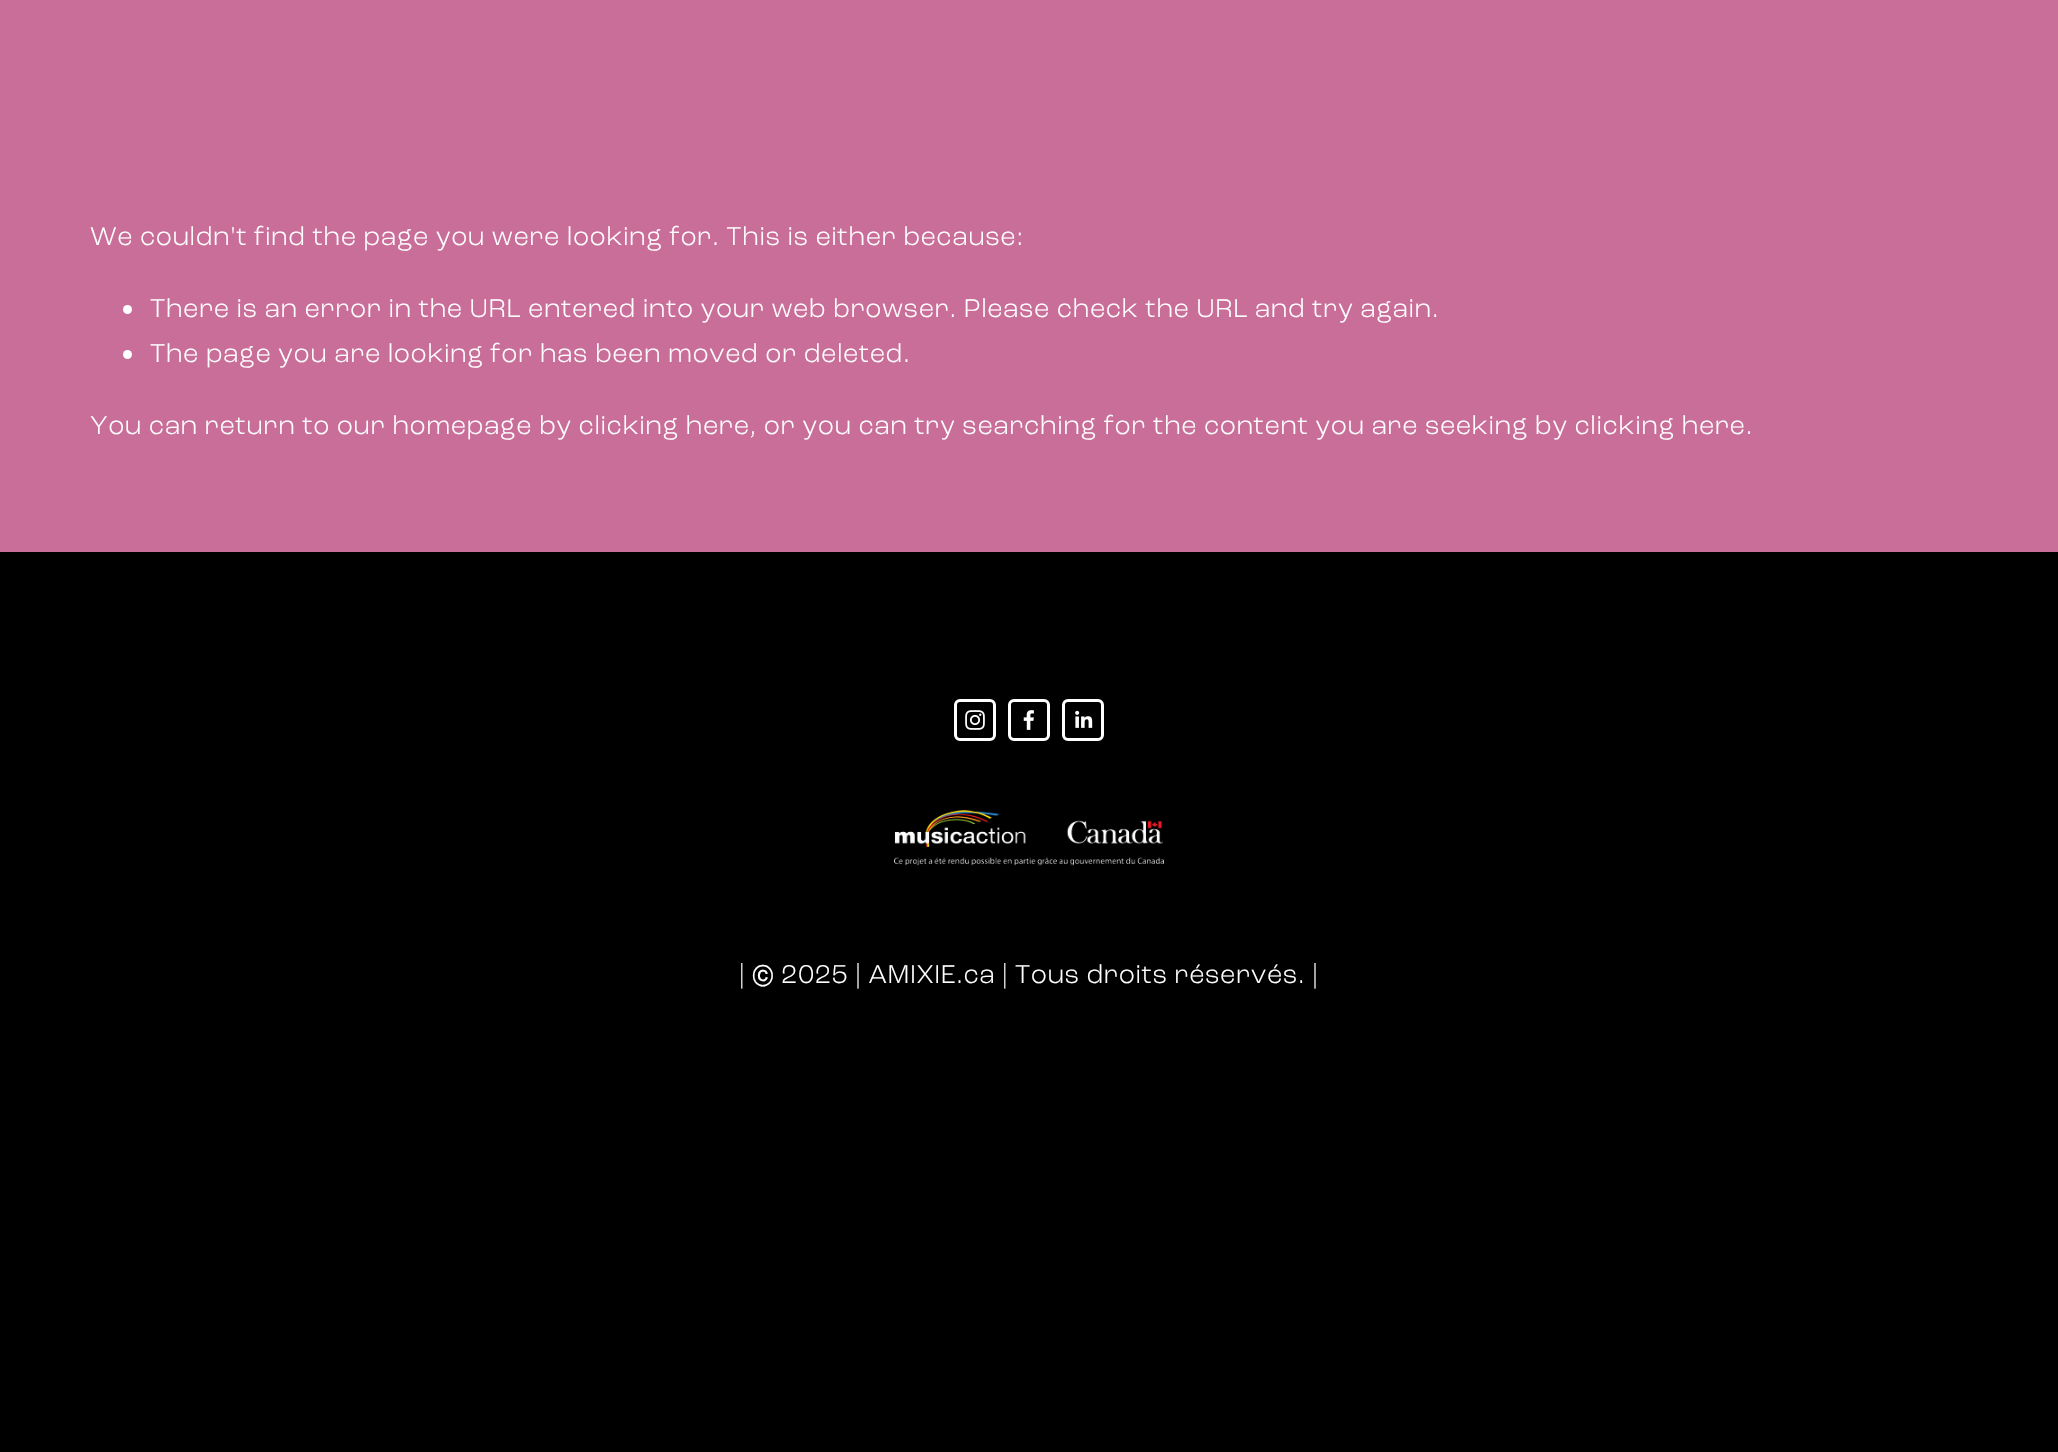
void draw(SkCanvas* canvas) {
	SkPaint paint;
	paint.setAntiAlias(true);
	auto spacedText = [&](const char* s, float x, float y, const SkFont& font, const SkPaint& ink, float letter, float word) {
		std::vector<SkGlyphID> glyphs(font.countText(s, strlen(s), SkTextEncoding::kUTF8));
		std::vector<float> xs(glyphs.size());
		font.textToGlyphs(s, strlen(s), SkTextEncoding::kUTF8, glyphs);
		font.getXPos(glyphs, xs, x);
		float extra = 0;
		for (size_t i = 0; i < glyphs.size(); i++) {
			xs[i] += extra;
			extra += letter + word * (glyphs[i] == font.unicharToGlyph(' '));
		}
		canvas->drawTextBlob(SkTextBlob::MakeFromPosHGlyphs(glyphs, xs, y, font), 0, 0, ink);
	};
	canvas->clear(0xff000000);
	paint.setColor(0xffc96e99);
	canvas->drawRect(SkRect::MakeXYWH(0, 0, 2058, 552), paint);
	SkFont f1(fontMgr->matchFamilyStyle("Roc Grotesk", SkFontStyle(300, SkFontStyle::kNormal_Width, SkFontStyle::kUpright_Slant)), 27);
	f1.setSubpixel(true);
	paint.setColor(0xffffffff);
	spacedText("We couldn't find the page you were looking for. This is either because:", 90, 245, f1, paint, 0.54, 0);
	canvas->drawCircle(127.5, 309.5, 4.5, paint);
	spacedText("There is an error in the URL entered into your web browser. Please check the URL and try again.", 150, 317, f1, paint, 0.54, 0);
	canvas->drawCircle(127.5, 354.5, 4.5, paint);
	spacedText("The page you are looking for has been moved or deleted.", 150, 362, f1, paint, 0.54, 0);
	spacedText("You can return to our homepage by clicking here, or you can try searching for the content you are seeking by clicking here.", 90, 434, f1, paint, 0.54, 0);
	paint.setStroke(true);
	paint.setStrokeWidth(3);
	canvas->drawRoundRect(SkRect::MakeXYWH(955.5, 700.5, 39, 39), 4.5, 4.5, paint);
	canvas->drawImageRect(SkImages::DeferredFromEncodedData(SkData::MakeFromFileName("img1.png")), SkRect::MakeXYWH(965, 710, 20, 20), SkSamplingOptions());
	canvas->drawRoundRect(SkRect::MakeXYWH(1009.5, 700.5, 39, 39), 4.5, 4.5, paint);
	canvas->drawImageRect(SkImages::DeferredFromEncodedData(SkData::MakeFromFileName("img2.png")), SkRect::MakeXYWH(1023, 710, 11, 20), SkSamplingOptions());
	canvas->drawRoundRect(SkRect::MakeXYWH(1063.5, 700.5, 39, 39), 4.5, 4.5, paint);
	canvas->drawImageRect(SkImages::DeferredFromEncodedData(SkData::MakeFromFileName("img3.png")), SkRect::MakeXYWH(1075, 710, 18, 18), SkSamplingOptions());
	canvas->drawImageRect(SkImages::DeferredFromEncodedData(SkData::MakeFromFileName("img4.png")), SkRect::MakeXYWH(894, 810, 270, 56), SkSamplingOptions());
	paint.setStroke(false);
	spacedText("| © 2025 | AMIXIE.ca | Tous droits réservés. |", 739, 983, f1, paint, 0.54, 0);
}
